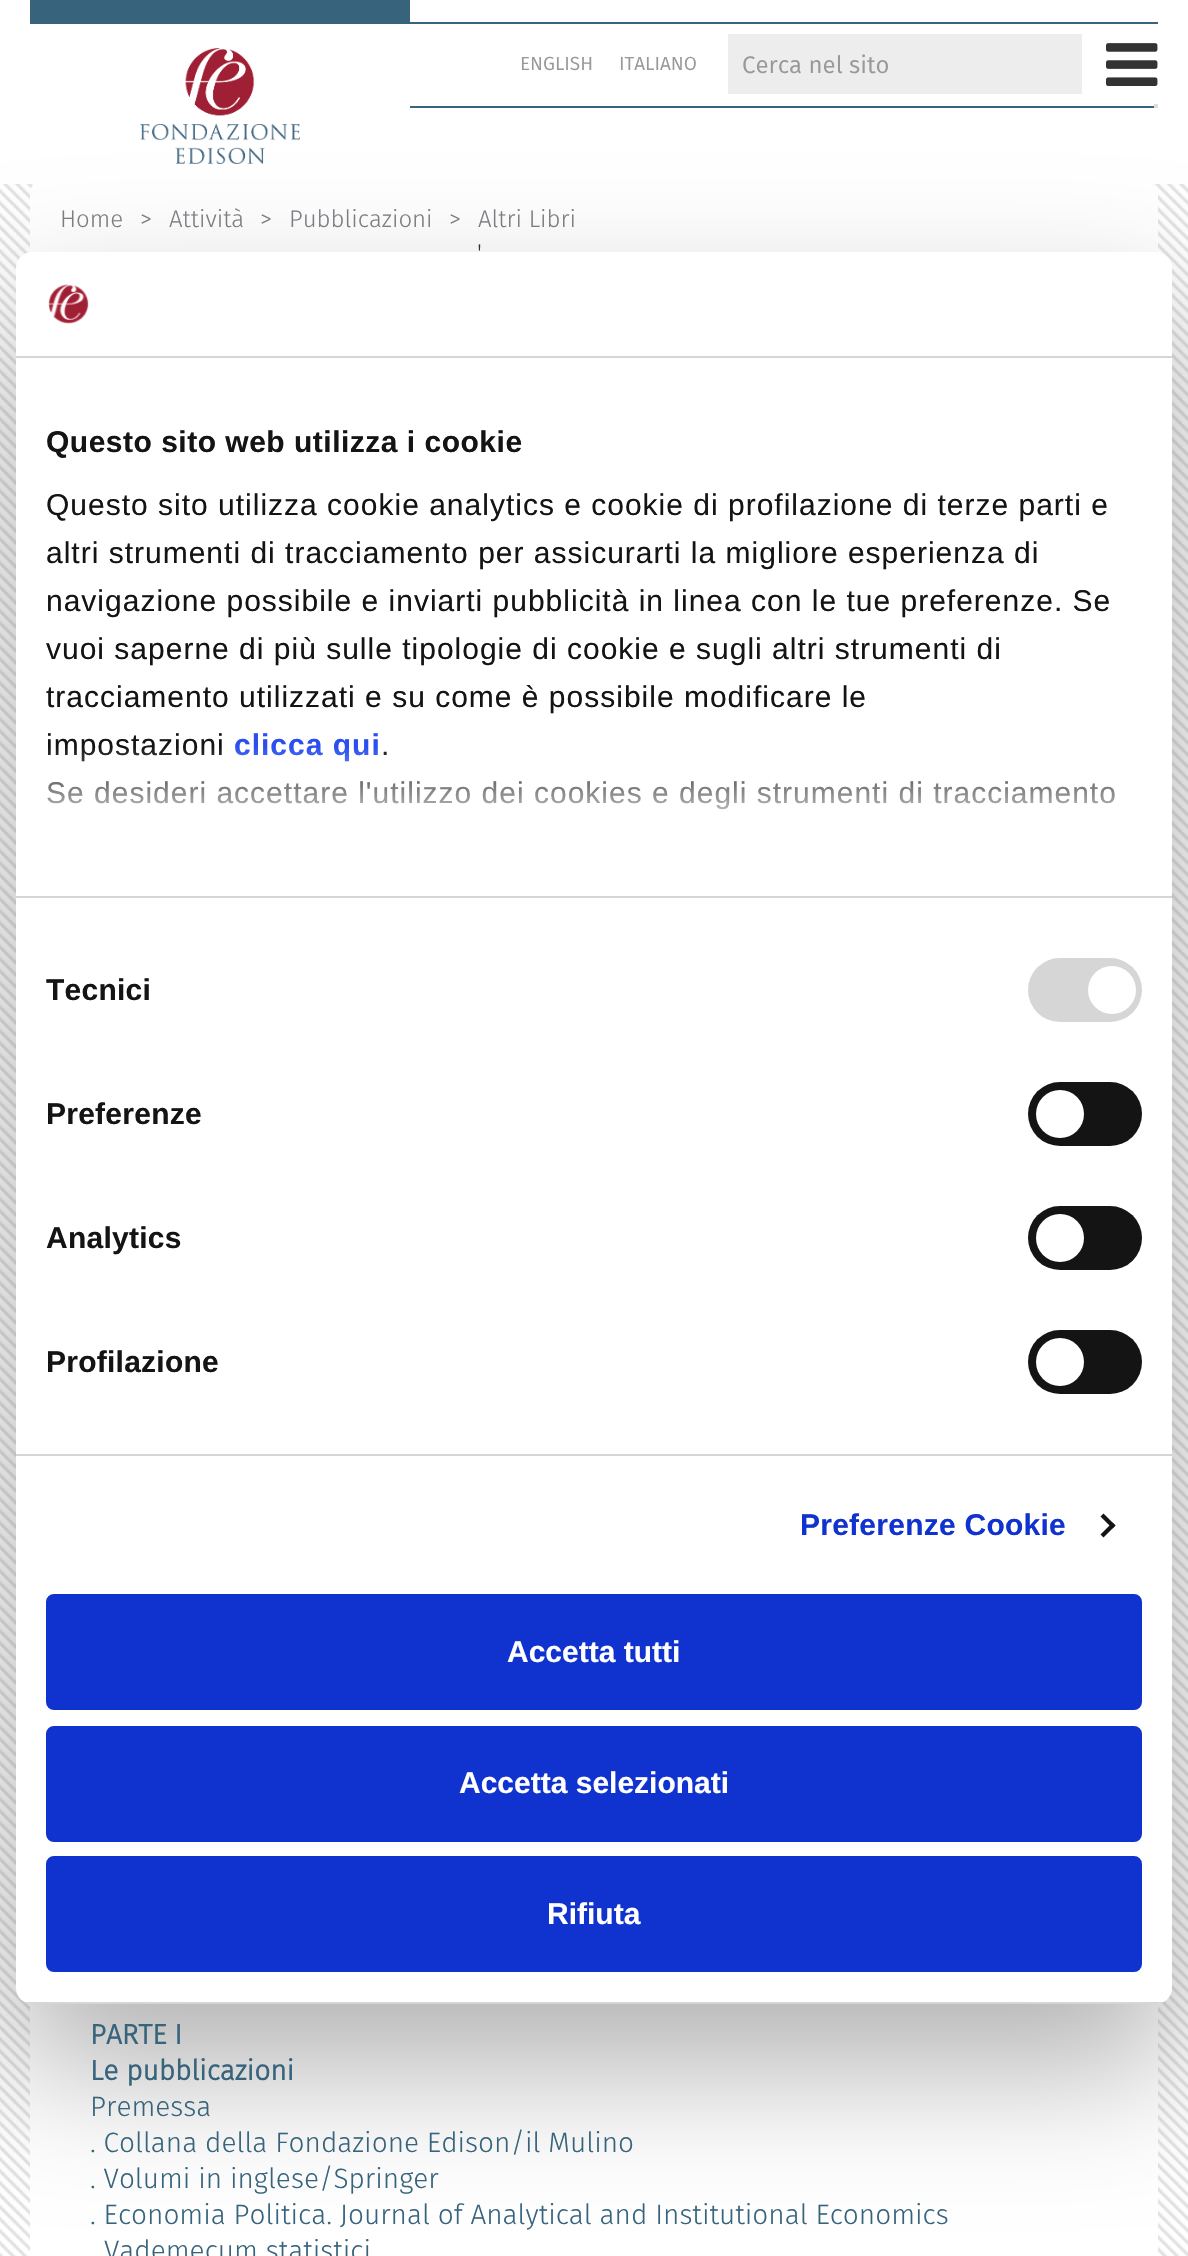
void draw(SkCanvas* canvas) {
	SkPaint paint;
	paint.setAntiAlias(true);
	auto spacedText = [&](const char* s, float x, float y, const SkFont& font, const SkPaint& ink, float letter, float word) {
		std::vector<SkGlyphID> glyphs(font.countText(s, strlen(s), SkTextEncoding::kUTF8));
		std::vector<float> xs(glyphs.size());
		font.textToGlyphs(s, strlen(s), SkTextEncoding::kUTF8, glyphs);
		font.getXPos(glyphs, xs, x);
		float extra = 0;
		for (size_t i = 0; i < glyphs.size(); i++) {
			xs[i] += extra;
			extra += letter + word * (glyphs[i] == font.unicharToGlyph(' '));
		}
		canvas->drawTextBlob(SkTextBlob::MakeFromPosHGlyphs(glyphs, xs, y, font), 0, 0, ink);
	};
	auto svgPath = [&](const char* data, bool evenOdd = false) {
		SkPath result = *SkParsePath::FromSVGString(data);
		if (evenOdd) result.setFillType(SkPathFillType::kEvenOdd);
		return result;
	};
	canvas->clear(0xffffffff);
	canvas->drawImageRect(SkImages::DeferredFromEncodedData(SkData::MakeFromFileName("img1.png")), SkRect::MakeXYWH(0, 184, 1188, 2072), SkSamplingOptions());
	paint.setColor(0xff37647c);
	canvas->drawRect(SkRect::MakeXYWH(30, 0, 380, 24), paint);
	canvas->drawImageRect(SkImages::DeferredFromEncodedData(SkData::MakeFromFileName("img2.png")), SkRect::MakeXYWH(140, 48, 160, 116), SkSamplingOptions());
	SkFont f1(fontMgr->matchFamilyStyle("Fira Sans", SkFontStyle::Normal()), 19);
	f1.setSubpixel(true);
	paint.setColor(0xff999999);
	canvas->drawString("ENGLISH", 520, 70, f1, paint);
	canvas->drawString("ITALIANO", 619, 70, f1, paint);
	paint.setColor(0xff37647c);
	canvas->drawRect(SkRect::MakeXYWH(410, 22, 748, 2), paint);
	canvas->drawRect(SkRect::MakeXYWH(410, 106, 748, 2), paint);
	paint.setColor(0xffededed);
	canvas->drawRect(SkRect::MakeXYWH(728, 34, 354, 60), paint);
	SkFont f2(fontMgr->matchFamilyStyle("Fira Sans", SkFontStyle::Normal()), 24);
	f2.setSubpixel(true);
	paint.setColor(0xff999999);
	canvas->drawString("Cerca nel sito", 742, 73, f2, paint);
	paint.setColor(0xffdddddd);
	canvas->drawRect(SkRect::MakeXYWH(1154, 104, 4, 4), paint);
	canvas->drawImageRect(SkImages::DeferredFromEncodedData(SkData::MakeFromFileName("img3.png")), SkRect::MakeXYWH(1106, 43, 52, 43), SkSamplingOptions());
	paint.setColor(0xffffffff);
	canvas->drawRoundRect(SkRect::MakeXYWH(30, 184, 1128, 86), 8, 8, paint);
	SkFont f3(fontMgr->matchFamilyStyle("Fira Sans", SkFontStyle(300, SkFontStyle::kNormal_Width, SkFontStyle::kUpright_Slant)), 24);
	f3.setSubpixel(true);
	paint.setColor(0xff7f8085);
	canvas->drawString("Home", 60, 227, f3, paint);
	canvas->drawString(">", 140, 227, f3, paint);
	canvas->drawString("Attività", 169, 227, f3, paint);
	canvas->drawString(">", 260, 227, f3, paint);
	canvas->drawString("Pubblicazioni", 289, 227, f3, paint);
	canvas->drawString(">", 449, 227, f3, paint);
	canvas->drawString("Altri Libri", 478, 227, f3, paint);
	paint.setColor(0xff333333);
	canvas->drawString("'", 477, 261, f3, paint);
	paint.setColor(0xffffffff);
	canvas->drawRect(SkRect::MakeXYWH(30, 2003, 1128, 253), paint);
	paint.setColor(0x4d000000);
	paint.setMaskFilter(SkMaskFilter::MakeBlur(kNormal_SkBlurStyle, 68));
	canvas->drawRoundRect(SkRect::MakeXYWH(16, 316, 1156, 1752), 16, 16, paint);
	paint.setMaskFilter(nullptr);
	paint.setColor(0xffffffff);
	canvas->drawRoundRect(SkRect::MakeXYWH(16, 252, 1156, 1752), 16, 16, paint);
	paint.setColor(0xffd6d6d6);
	canvas->drawRect(SkRect::MakeXYWH(16, 356, 1156, 2), paint);
	canvas->drawImageRect(SkImages::DeferredFromEncodedData(SkData::MakeFromFileName("img4.png")), SkRect::MakeXYWH(48, 284, 41, 40), SkSamplingOptions());
	canvas->drawRect(SkRect::MakeXYWH(16, 896, 1156, 2), paint);
	SkFont f4(fontMgr->matchFamilyStyle("Liberation Sans", SkFontStyle::Bold()), 30);
	f4.setSubpixel(true);
	paint.setColor(0xff141414);
	spacedText("Questo sito web utilizza i cookie", 46, 452, f4, paint, 0.5, 0);
	SkFont f5(fontMgr->matchFamilyStyle("Liberation Sans", SkFontStyle::Normal()), 30);
	f5.setSubpixel(true);
	spacedText("Questo sito utilizza cookie analytics e cookie di profilazione di terze parti e", 46, 515, f5, paint, 1, 0);
	spacedText("altri strumenti di tracciamento per assicurarti la migliore esperienza di", 46, 563, f5, paint, 1, 0);
	spacedText("navigazione possibile e inviarti pubblicità in linea con le tue preferenze. Se", 46, 611, f5, paint, 1, 0);
	spacedText("vuoi saperne di più sulle tipologie di cookie e sugli altri strumenti di", 46, 659, f5, paint, 1, 0);
	spacedText("tracciamento utilizzati e su come è possibile modificare le", 46, 707, f5, paint, 1, 0);
	spacedText("impostazioni", 46, 755, f5, paint, 1, 0);
	paint.setColor(0xff2a4eef);
	spacedText("clicca qui", 234, 755, f4, paint, 1, 0);
	paint.setColor(0xff141414);
	spacedText(".", 381, 755, f5, paint, 1, 0);
	spacedText("Se desideri accettare l'utilizzo dei cookies e degli strumenti di tracciamento", 46, 803, f5, paint, 1, 0);
	{
		const SkColor colors[] = {0xffffffff, 0xccffffff, 0x00ffffff};
		const float stops[] = {0, 0.5, 1};
		const SkPoint ends[] = {{581, 896}, {581, 746}};
		paint.setShader(SkGradientShader::MakeLinear(ends, colors, stops, 3, SkTileMode::kClamp));
		paint.setAlpha(255);
	}
	canvas->drawRect(SkRect::MakeXYWH(47, 748, 1068, 62), paint);
	paint.setShader(nullptr);
	paint.setColor(0xffd6d6d6);
	canvas->drawRect(SkRect::MakeXYWH(16, 1454, 1156, 2), paint);
	paint.setColor(0xff141414);
	spacedText("Tecnici", 46, 1000, f4, paint, 0.25, 0);
	paint.setColor(0xffd6d6d6);
	canvas->drawRoundRect(SkRect::MakeXYWH(1028, 958, 114, 64), 32, 32, paint);
	paint.setColor(0xffffffff);
	canvas->drawCircle(1112, 990, 24, paint);
	paint.setColor(0xff141414);
	spacedText("Preferenze", 46, 1124, f4, paint, 0.25, 0);
	canvas->drawRoundRect(SkRect::MakeXYWH(1028, 1082, 114, 64), 32, 32, paint);
	paint.setColor(0xffffffff);
	canvas->drawCircle(1060, 1114, 24, paint);
	paint.setColor(0xff141414);
	spacedText("Analytics", 46, 1248, f4, paint, 0.25, 0);
	canvas->drawRoundRect(SkRect::MakeXYWH(1028, 1206, 114, 64), 32, 32, paint);
	paint.setColor(0xffffffff);
	canvas->drawCircle(1060, 1238, 24, paint);
	paint.setColor(0xff141414);
	spacedText("Profilazione", 46, 1372, f4, paint, 0.25, 0);
	canvas->drawRoundRect(SkRect::MakeXYWH(1028, 1330, 114, 64), 32, 32, paint);
	paint.setColor(0xffffffff);
	canvas->drawCircle(1060, 1362, 24, paint);
	paint.setColor(0xff1032cf);
	spacedText("Preferenze Cookie", 800, 1535, f4, paint, 0.25, 0);
	paint.setColor(0xff141414);
	canvas->drawPath(svgPath("M1103.5 1513.5L1115.5 1525.5L1112.5 1528.5L1100.5 1516.5Z"), paint);
	canvas->drawPath(svgPath("M1112.5 1522.5L1115.5 1525.5L1103.5 1537.5L1100.5 1534.5Z"), paint);
	canvas->save();
	canvas->clipPath(svgPath("M32 252H1156C1165 252 1172 259 1172 268V1988C1172 1997 1165 2004 1156 2004H32C23 2004 16 1997 16 1988V268C16 259 23 252 32 252Z"), true);
	paint.setColor(0xffd6d6d6);
	canvas->drawRect(SkRect::MakeXYWH(16, 2002, 1156, 2), paint);
	canvas->restore();
	paint.setColor(0xff1032cf);
	canvas->drawRoundRect(SkRect::MakeXYWH(48, 1596, 1092, 112), 6, 6, paint);
	paint.setStroke(true);
	paint.setStrokeWidth(4);
	canvas->drawRoundRect(SkRect::MakeXYWH(48, 1596, 1092, 112), 6, 6, paint);
	paint.setStroke(false);
	paint.setColor(0xffffffff);
	canvas->drawString("Accetta tutti", 507, 1662, f4, paint);
	paint.setColor(0xff1032cf);
	canvas->drawRoundRect(SkRect::MakeXYWH(48, 1728, 1092, 112), 6, 6, paint);
	paint.setStroke(true);
	canvas->drawRoundRect(SkRect::MakeXYWH(48, 1728, 1092, 112), 6, 6, paint);
	paint.setStroke(false);
	paint.setColor(0xffffffff);
	canvas->drawString("Accetta selezionati", 459, 1793, f4, paint);
	paint.setColor(0xff1032cf);
	canvas->drawRoundRect(SkRect::MakeXYWH(48, 1858, 1092, 112), 6, 6, paint);
	paint.setStroke(true);
	canvas->drawRoundRect(SkRect::MakeXYWH(48, 1858, 1092, 112), 6, 6, paint);
	paint.setStroke(false);
	paint.setColor(0xffffffff);
	canvas->drawString("Rifiuta", 547, 1924, f4, paint);
	SkFont f6(fontMgr->matchFamilyStyle("Fira Sans", SkFontStyle::Bold()), 28);
	f6.setSubpixel(true);
	paint.setColor(0xff37647c);
	canvas->drawString("PARTE I", 90, 2044, f6, paint);
	canvas->drawString("Le pubblicazioni", 90, 2080, f6, paint);
	SkFont f7(fontMgr->matchFamilyStyle("Fira Sans", SkFontStyle(300, SkFontStyle::kNormal_Width, SkFontStyle::kUpright_Slant)), 28);
	f7.setSubpixel(true);
	canvas->drawString("Premessa", 90, 2116, f7, paint);
	canvas->drawString(". Collana della Fondazione Edison/il Mulino", 90, 2152, f7, paint);
	canvas->drawString(". Volumi in inglese/Springer", 90, 2188, f7, paint);
	canvas->drawString(". Economia Politica. Journal of Analytical and Institutional Economics", 90, 2224, f7, paint);
	canvas->drawString("Vademecum statistici", 104, 2260, f7, paint);
}
